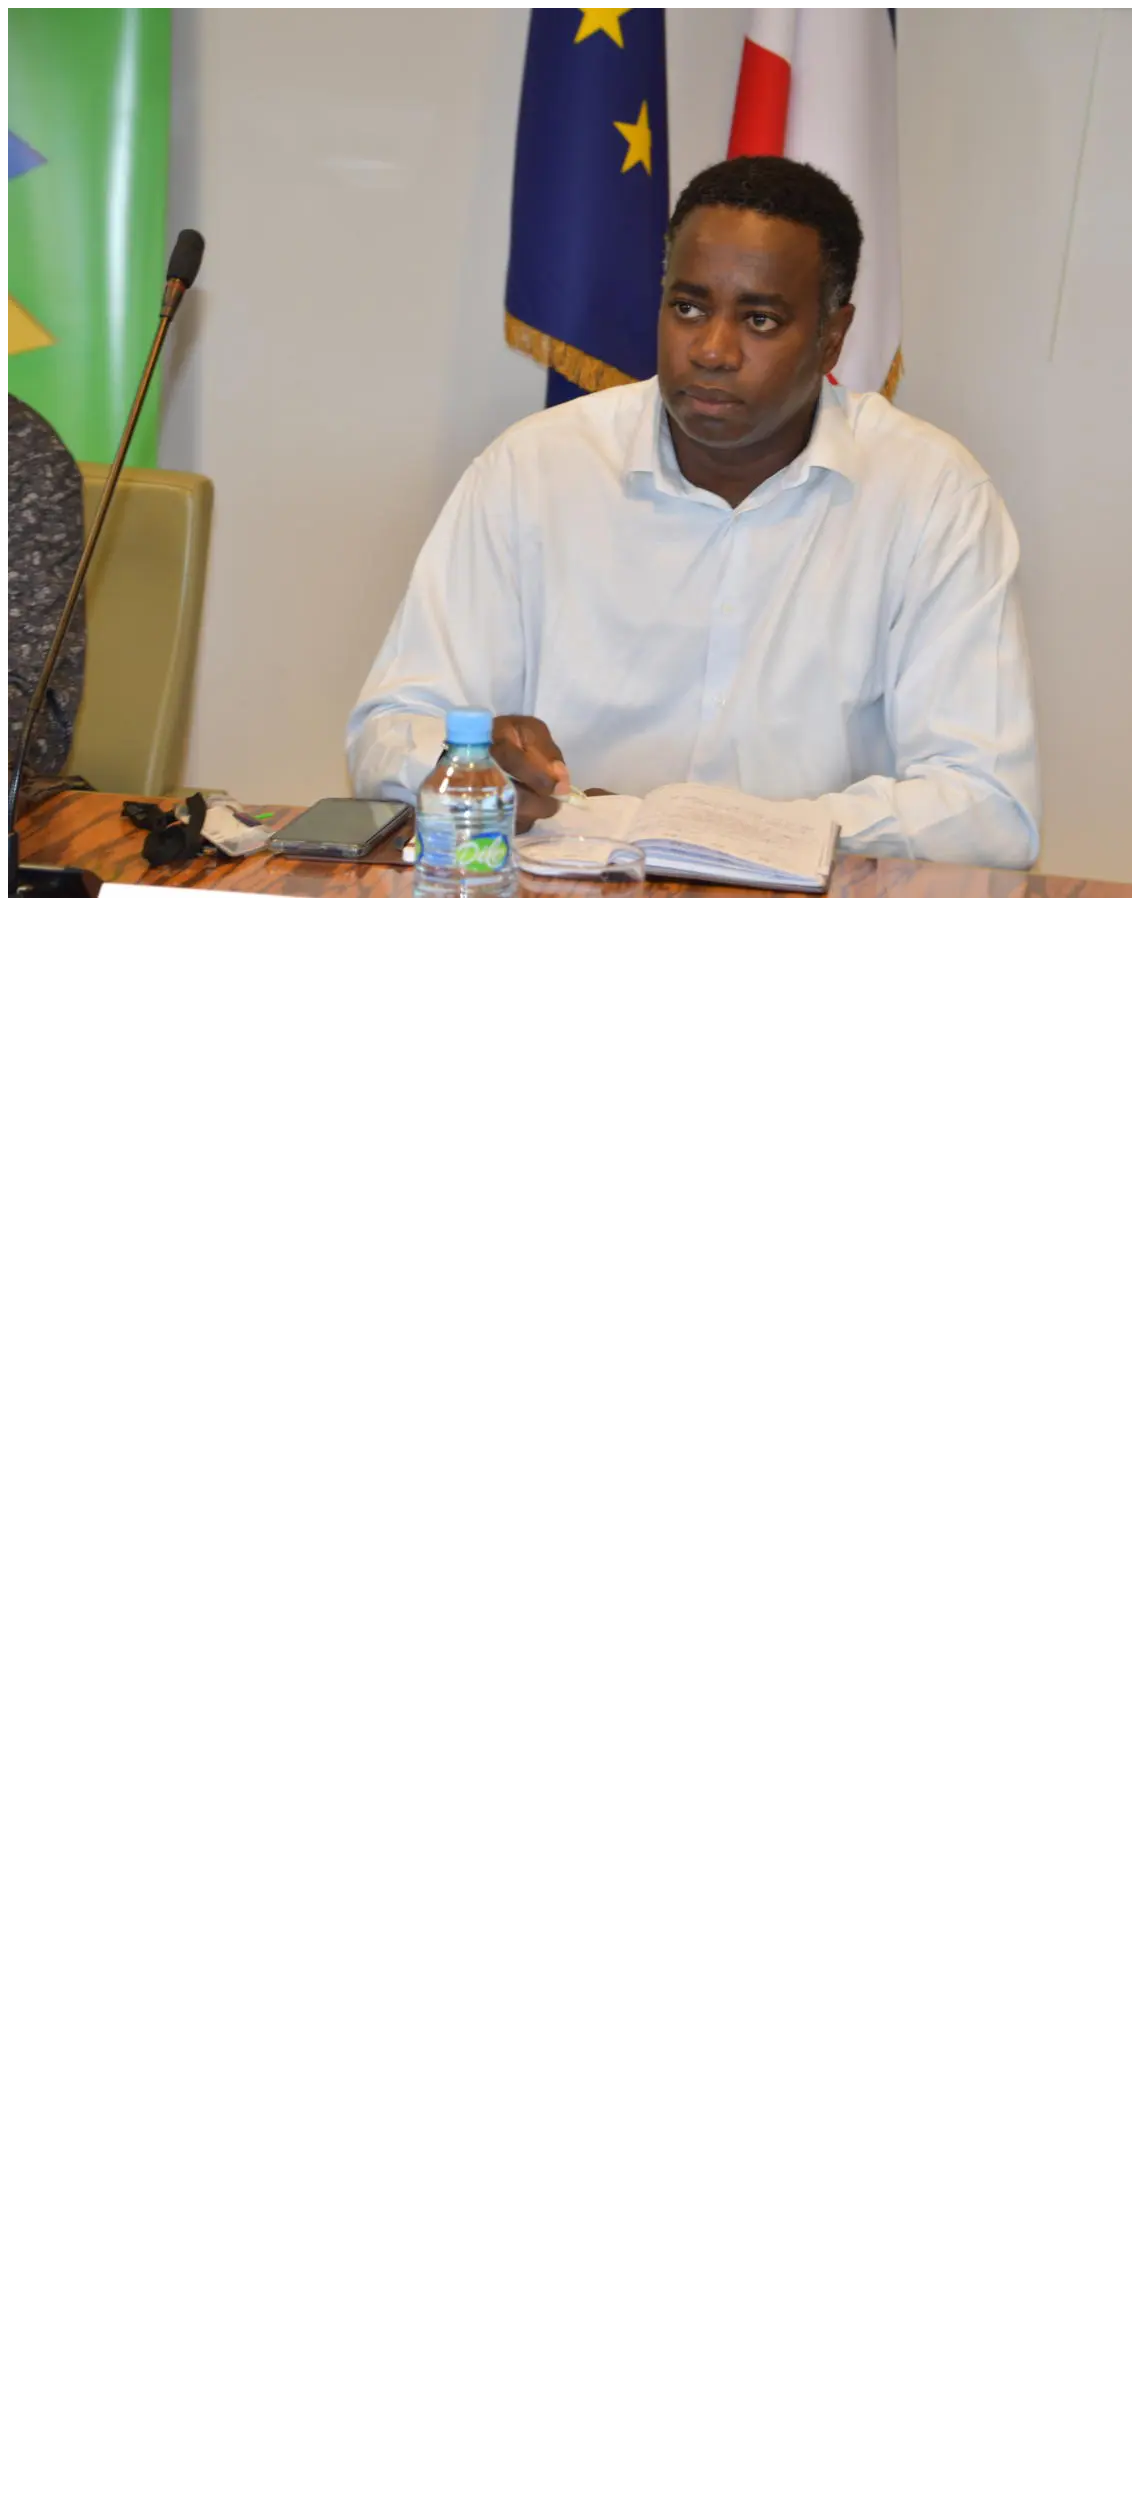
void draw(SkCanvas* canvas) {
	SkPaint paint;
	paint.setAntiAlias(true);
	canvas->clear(0xffffffff);
	canvas->drawImageRect(SkImages::DeferredFromEncodedData(SkData::MakeFromFileName("img1.png")), SkRect::MakeXYWH(8, 8, 1124, 890), SkSamplingOptions());
}
